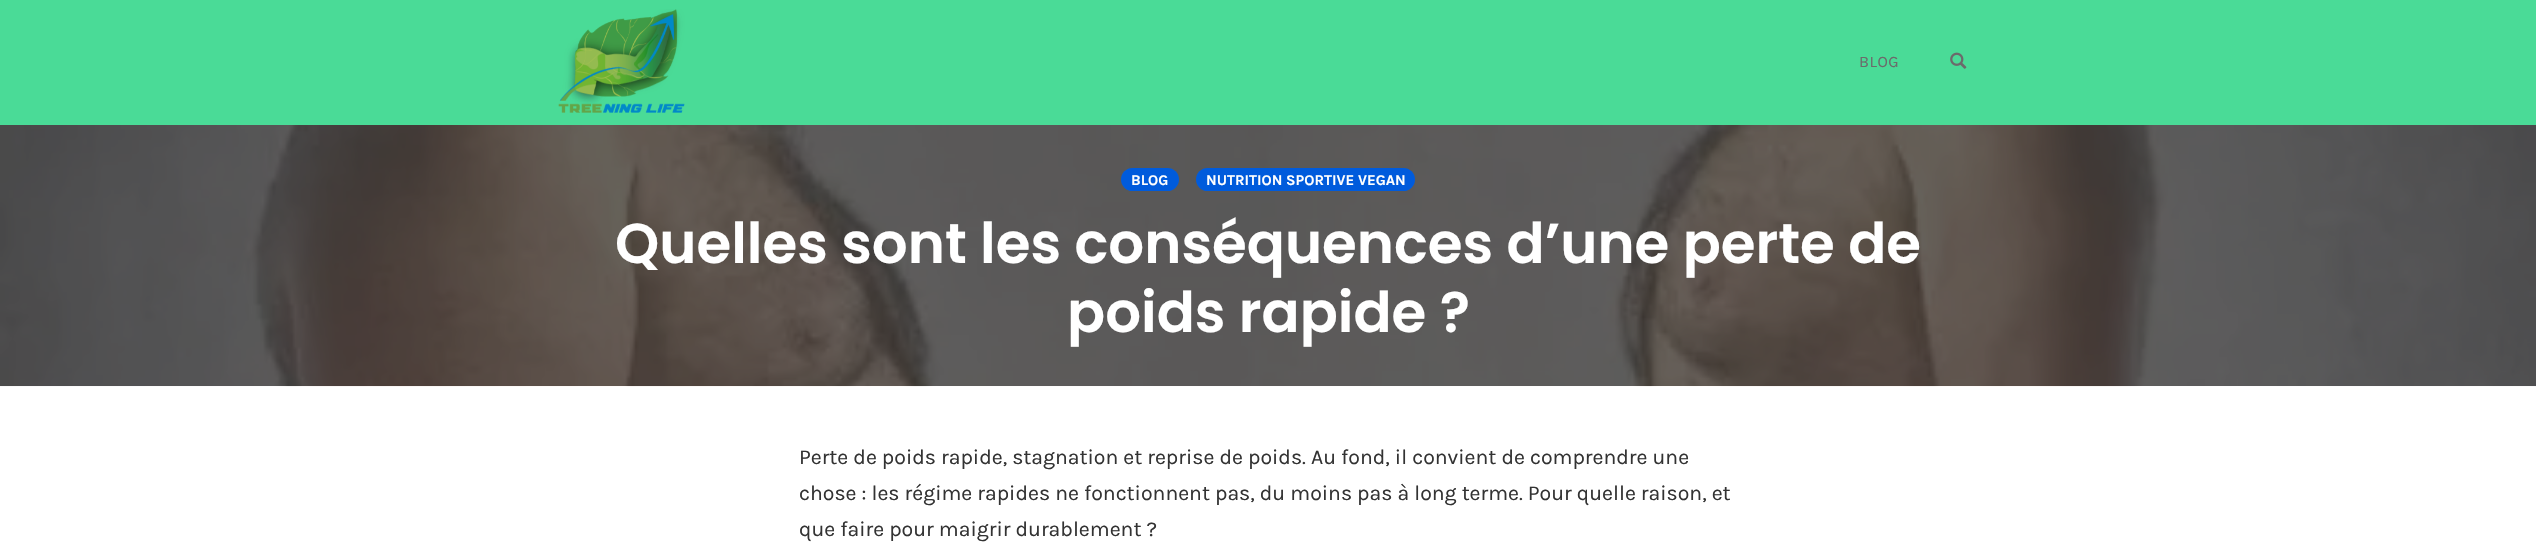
void draw(SkCanvas* canvas) {
	SkPaint paint;
	paint.setAntiAlias(true);
	auto spacedText = [&](const char* s, float x, float y, const SkFont& font, const SkPaint& ink, float letter, float word) {
		std::vector<SkGlyphID> glyphs(font.countText(s, strlen(s), SkTextEncoding::kUTF8));
		std::vector<float> xs(glyphs.size());
		font.textToGlyphs(s, strlen(s), SkTextEncoding::kUTF8, glyphs);
		font.getXPos(glyphs, xs, x);
		float extra = 0;
		for (size_t i = 0; i < glyphs.size(); i++) {
			xs[i] += extra;
			extra += letter + word * (glyphs[i] == font.unicharToGlyph(' '));
		}
		canvas->drawTextBlob(SkTextBlob::MakeFromPosHGlyphs(glyphs, xs, y, font), 0, 0, ink);
	};
	canvas->clear(0xffffffff);
	paint.setColor(0xff4adb97);
	canvas->drawRect(SkRect::MakeXYWH(0, 0, 2536, 125), paint);
	canvas->drawImageRect(SkImages::DeferredFromEncodedData(SkData::MakeFromFileName("img1.png")), SkRect::MakeXYWH(558, 9, 127, 104), SkSamplingOptions());
	SkFont f1(fontMgr->matchFamilyStyle("Karla", SkFontStyle::Normal()), 16);
	f1.setSubpixel(true);
	paint.setColor(0xff6b6b6b);
	spacedText("BLOG", 1859, 67, f1, paint, 0.5, 0);
	canvas->drawImageRect(SkImages::DeferredFromEncodedData(SkData::MakeFromFileName("img2.png")), SkRect::MakeXYWH(1950, 52, 17, 17), SkSamplingOptions());
	canvas->drawImageRect(SkImages::DeferredFromEncodedData(SkData::MakeFromFileName("img3.png")), SkRect::MakeXYWH(0, 125, 2536, 262), SkSamplingOptions());
	paint.setColor(0xff005bdc);
	canvas->drawRoundRect(SkRect::MakeXYWH(1121, 168, 58, 23), 11.5, 11.5, paint);
	SkFont f2(fontMgr->matchFamilyStyle("Karla", SkFontStyle::Bold()), 14.9);
	f2.setSubpixel(true);
	paint.setColor(0xffffffff);
	canvas->drawString("BLOG", 1131, 185, f2, paint);
	paint.setColor(0xff005bdc);
	canvas->drawRoundRect(SkRect::MakeXYWH(1196, 168, 219, 23), 11.5, 11.5, paint);
	paint.setColor(0xffffffff);
	canvas->drawString("NUTRITION SPORTIVE VEGAN", 1206, 185, f2, paint);
	SkFont f3(fontMgr->matchFamilyStyle("Poppins", SkFontStyle(600, SkFontStyle::kNormal_Width, SkFontStyle::kUpright_Slant)), 56.25);
	f3.setSubpixel(true);
	canvas->drawString("Quelles sont les conséquences d’une perte de", 615, 263, f3, paint);
	canvas->drawString("poids rapide ?", 1067, 332, f3, paint);
	SkFont f4(fontMgr->matchFamilyStyle("Karla", SkFontStyle::Normal()), 21.25);
	f4.setSubpixel(true);
	paint.setColor(0xff333333);
	canvas->drawString("Perte de poids rapide, stagnation et reprise de poids. Au fond, il convient de comprendre une", 799, 464, f4, paint);
	canvas->drawString("chose : les régime rapides ne fonctionnent pas, du moins pas à long terme. Pour quelle raison, et", 799, 500, f4, paint);
	canvas->drawString("que faire pour maigrir durablement ?", 799, 536, f4, paint);
}
